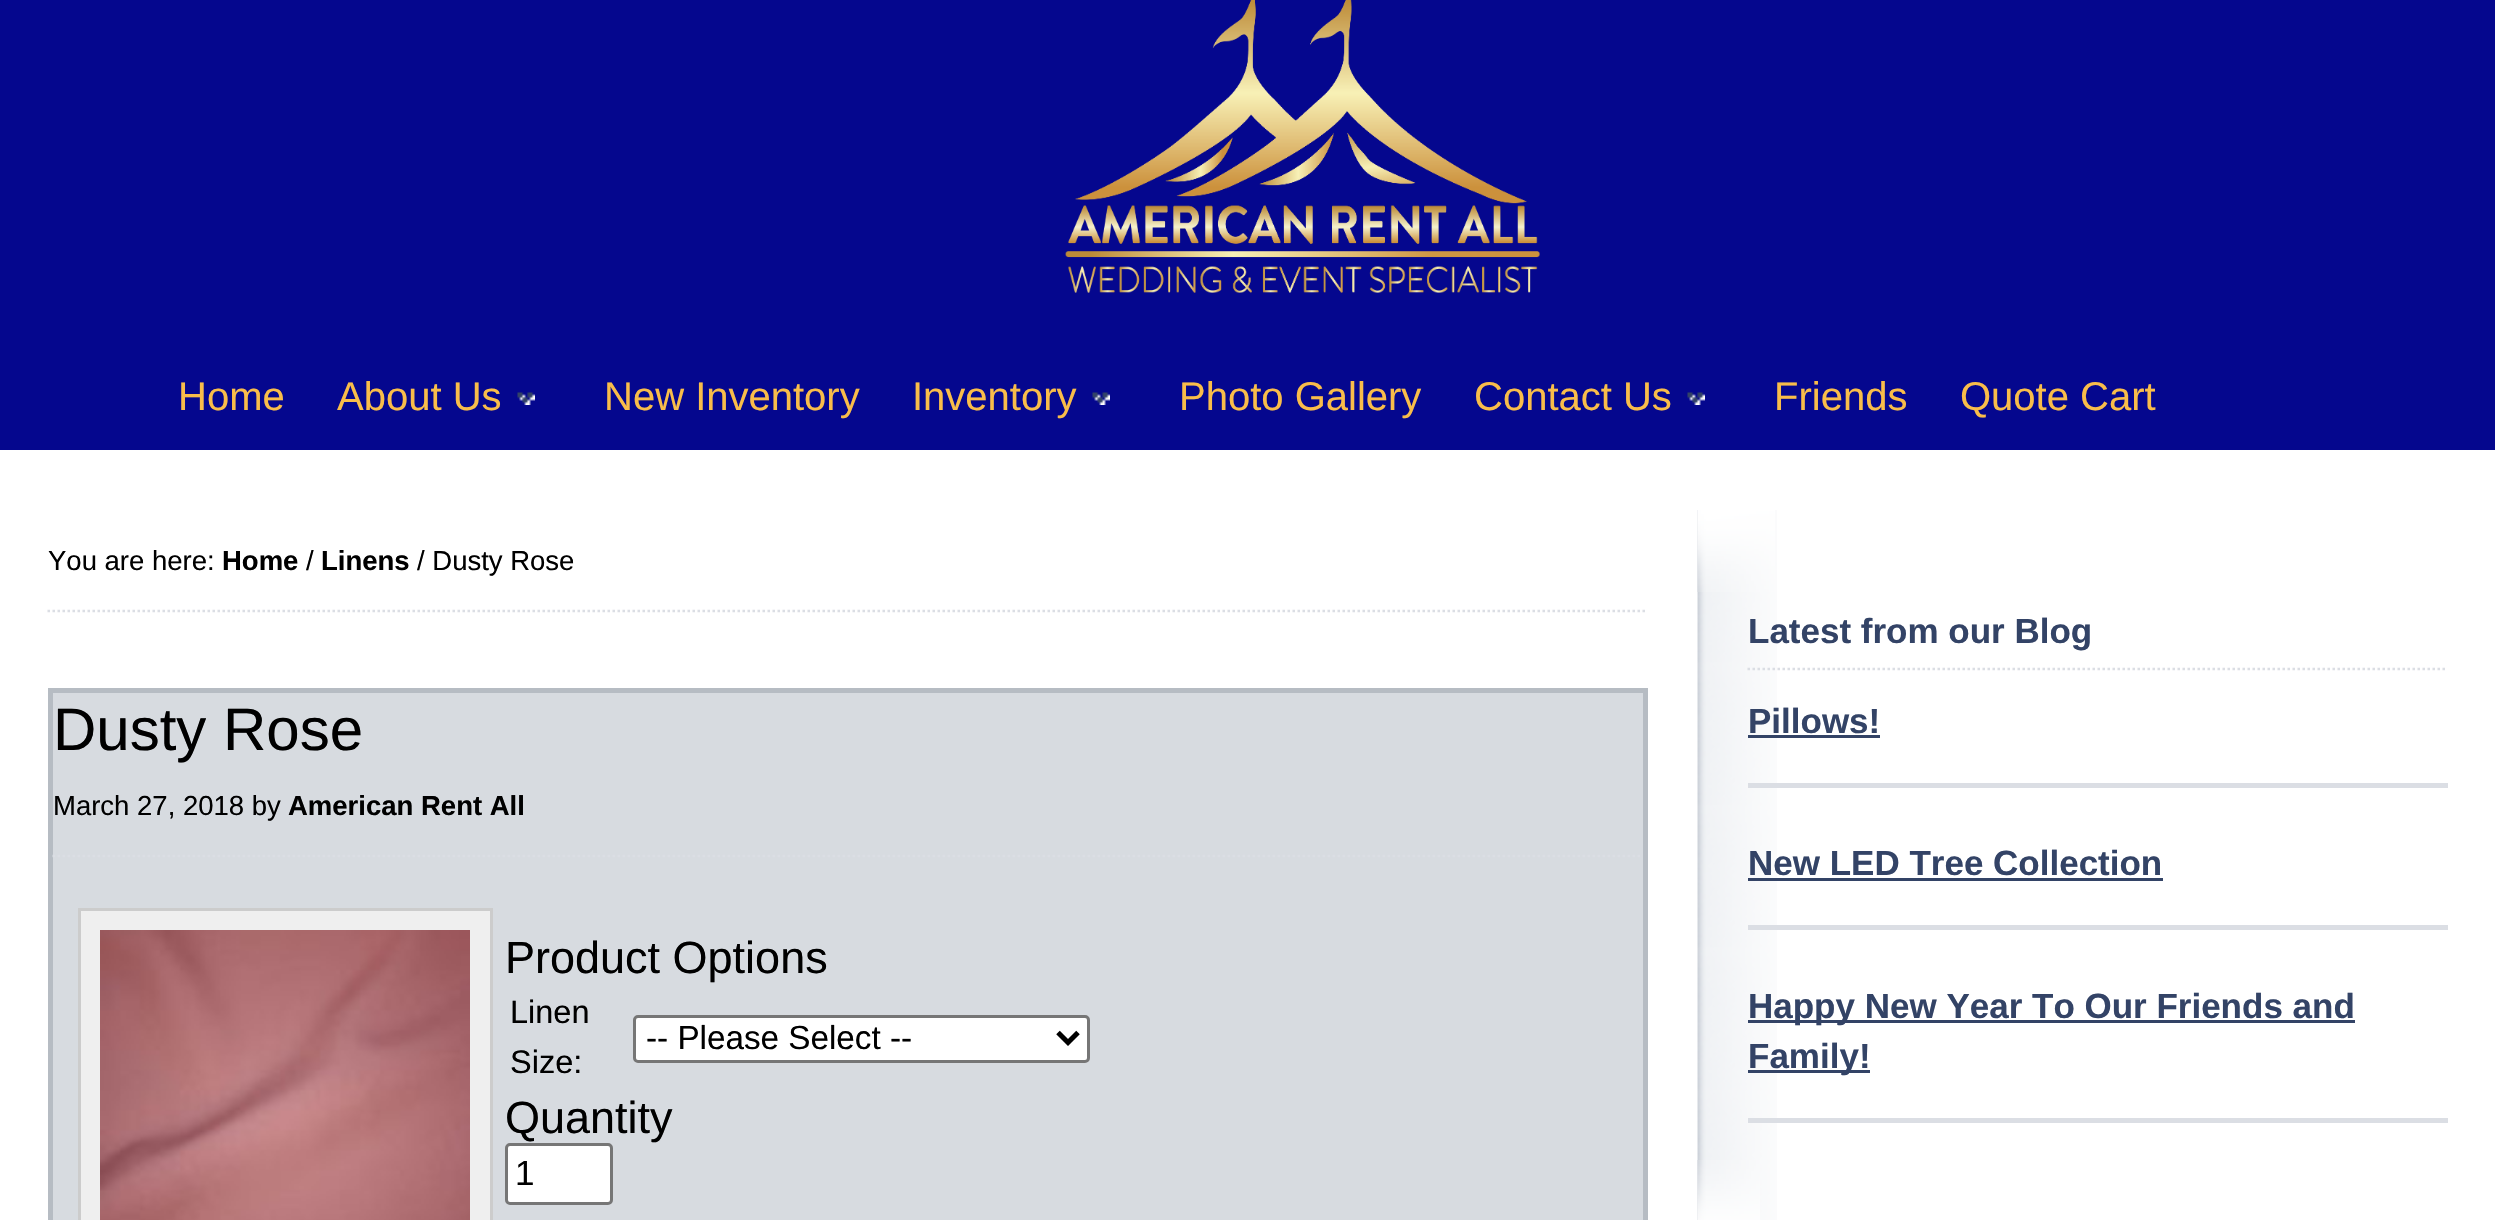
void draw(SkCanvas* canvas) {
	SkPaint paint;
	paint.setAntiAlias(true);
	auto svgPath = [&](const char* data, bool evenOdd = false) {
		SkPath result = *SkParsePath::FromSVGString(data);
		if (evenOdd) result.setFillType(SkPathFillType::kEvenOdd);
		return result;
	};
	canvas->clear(0xffffffff);
	paint.setColor(0xff05078e);
	canvas->drawRect(SkRect::MakeXYWH(0, 0, 2495, 450), paint);
	canvas->drawImageRect(SkImages::DeferredFromEncodedData(SkData::MakeFromFileName("img1.png")), SkRect::MakeXYWH(1065, 0, 475, 293), SkSamplingOptions());
	SkFont f1(fontMgr->matchFamilyStyle("Liberation Sans", SkFontStyle::Normal()), 40);
	f1.setSubpixel(true);
	paint.setColor(0xfff9bd4a);
	canvas->drawString("Home", 178, 410, f1, paint);
	canvas->drawString("About Us", 337, 410, f1, paint);
	canvas->drawImageRect(SkImages::DeferredFromEncodedData(SkData::MakeFromFileName("img2.png")), SkRect::MakeXYWH(517, 392, 18, 13), SkSamplingOptions());
	canvas->drawString("New Inventory", 604, 410, f1, paint);
	canvas->drawString("Inventory", 912, 410, f1, paint);
	canvas->drawImageRect(SkImages::DeferredFromEncodedData(SkData::MakeFromFileName("img3.png")), SkRect::MakeXYWH(1092, 392, 18, 13), SkSamplingOptions());
	canvas->drawString("Photo Gallery", 1179, 410, f1, paint);
	canvas->drawString("Contact Us", 1474, 410, f1, paint);
	canvas->drawImageRect(SkImages::DeferredFromEncodedData(SkData::MakeFromFileName("img2.png")), SkRect::MakeXYWH(1687, 392, 18, 13), SkSamplingOptions());
	canvas->drawString("Friends", 1774, 410, f1, paint);
	canvas->drawString("Quote Cart", 1960, 410, f1, paint);
	paint.setStroke(true);
	paint.setStrokeWidth(2.5);
	paint.setColor(0xffdbdee4);
	paint.setPathEffect(SkDashPathEffect::Make({{2.5f, 2.5f}}, 0));
	canvas->drawPath(svgPath("M47.5 611H1647.5"), paint);
	paint.setPathEffect(nullptr);
	SkFont f2(fontMgr->matchFamilyStyle("Liberation Sans", SkFontStyle::Normal()), 27.5);
	f2.setSubpixel(true);
	paint.setStroke(false);
	paint.setColor(0xff000000);
	canvas->drawString("You are here:", 48, 570, f2, paint);
	SkFont f3(fontMgr->matchFamilyStyle("Liberation Sans", SkFontStyle::Bold()), 27.5);
	f3.setSubpixel(true);
	canvas->drawString("Home", 222, 570, f3, paint);
	canvas->drawString("/", 306, 570, f2, paint);
	canvas->drawString("Linens", 321, 570, f3, paint);
	canvas->drawString("/ Dusty Rose", 417, 570, f2, paint);
	paint.setColor(0xffd7dbe0);
	canvas->drawRect(SkRect::MakeXYWH(50.5, 690.5, 1595, 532), paint);
	paint.setStroke(true);
	paint.setStrokeWidth(5);
	paint.setColor(0xffb6bcc3);
	canvas->drawRect(SkRect::MakeXYWH(50.5, 690.5, 1595, 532), paint);
	SkFont f4(fontMgr->matchFamilyStyle("Liberation Sans", SkFontStyle::Normal()), 60);
	f4.setSubpixel(true);
	paint.setStroke(false);
	paint.setColor(0xff000000);
	canvas->drawString("Dusty Rose", 53, 750, f4, paint);
	paint.setStroke(true);
	paint.setStrokeWidth(2.5);
	paint.setColor(0xffdbdee4);
	paint.setPathEffect(SkDashPathEffect::Make({{2.5f, 2.5f}}, 0));
	canvas->drawPath(svgPath("M52.5 856H1642.5"), paint);
	paint.setPathEffect(nullptr);
	paint.setStroke(false);
	paint.setColor(0xff000000);
	canvas->drawString("March 27, 2018 by", 53, 815, f2, paint);
	canvas->drawString("American Rent All", 288, 815, f3, paint);
	paint.setColor(0xffefefef);
	canvas->drawRect(SkRect::MakeXYWH(79.5, 909.5, 412, 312), paint);
	paint.setStroke(true);
	paint.setStrokeWidth(3);
	paint.setColor(0xffcccccc);
	canvas->drawRect(SkRect::MakeXYWH(79.5, 909.5, 412, 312), paint);
	canvas->drawImageRect(SkImages::DeferredFromEncodedData(SkData::MakeFromFileName("img4.png")), SkRect::MakeXYWH(100, 930, 370, 290), SkSamplingOptions());
	SkFont f5(fontMgr->matchFamilyStyle("Liberation Sans", SkFontStyle::Normal()), 45);
	f5.setSubpixel(true);
	paint.setStroke(false);
	paint.setColor(0xff000000);
	canvas->drawString("Product Options", 505, 973, f5, paint);
	SkFont f6(fontMgr->matchFamilyStyle("Liberation Sans", SkFontStyle::Normal()), 32.5);
	f6.setSubpixel(true);
	canvas->drawString("Linen", 510, 1023, f6, paint);
	canvas->drawString("Size:", 510, 1073, f6, paint);
	paint.setColor(0xffffffff);
	canvas->drawRoundRect(SkRect::MakeXYWH(634.5, 1016.5, 454, 45), 3.5, 3.5, paint);
	paint.setStroke(true);
	paint.setColor(0xff767676);
	canvas->drawRoundRect(SkRect::MakeXYWH(634.5, 1016.5, 454, 45), 3.5, 3.5, paint);
	paint.setStrokeWidth(5);
	paint.setColor(0xff000000);
	canvas->drawPath(svgPath("M1058 1032.5L1068 1042.5L1078 1032.5"), paint);
	SkFont f7(fontMgr->matchFamilyStyle("Liberation Sans", SkFontStyle::Normal()), 33.25);
	f7.setSubpixel(true);
	paint.setStroke(false);
	canvas->drawString("-- Please Select --", 646, 1049, f7, paint);
	canvas->drawString("Quantity", 505, 1133, f5, paint);
	paint.setColor(0xffffffff);
	canvas->drawRoundRect(SkRect::MakeXYWH(506.5, 1144.5, 105, 59), 3.5, 3.5, paint);
	paint.setStroke(true);
	paint.setStrokeWidth(3);
	paint.setColor(0xff767676);
	canvas->drawRoundRect(SkRect::MakeXYWH(506.5, 1144.5, 105, 59), 3.5, 3.5, paint);
	SkFont f8(fontMgr->matchFamilyStyle("Liberation Sans", SkFontStyle::Normal()), 35);
	f8.setSubpixel(true);
	paint.setStroke(false);
	paint.setColor(0xff000000);
	canvas->drawString("1", 515, 1185, f8, paint);
	canvas->drawImageRect(SkImages::DeferredFromEncodedData(SkData::MakeFromFileName("img5.png")), SkRect::MakeXYWH(1697, 510, 80, 710), SkSamplingOptions());
	canvas->drawImageRect(SkImages::DeferredFromEncodedData(SkData::MakeFromFileName("img6.png")), SkRect::MakeXYWH(1697, 510, 78, 82), SkSamplingOptions());
	paint.setStroke(true);
	paint.setStrokeWidth(2.5);
	paint.setColor(0xffdbdee4);
	paint.setPathEffect(SkDashPathEffect::Make({{2.5f, 2.5f}}, 0));
	canvas->drawPath(svgPath("M1747.5 669H2447.5"), paint);
	paint.setPathEffect(nullptr);
	SkFont f9(fontMgr->matchFamilyStyle("Liberation Sans", SkFontStyle::Bold()), 35);
	f9.setSubpixel(true);
	paint.setStroke(false);
	paint.setColor(0xff334366);
	canvas->drawString("Latest from our Blog", 1748, 643, f9, paint);
	paint.setColor(0xffdbdee4);
	canvas->drawRect(SkRect::MakeXYWH(1748, 783, 700, 5), paint);
	paint.setColor(0xff334366);
	canvas->drawString("Pillows!", 1748, 733, f9, paint);
	canvas->drawRect(SkRect::MakeXYWH(1748, 735, 132, 3), paint);
	paint.setColor(0xffdbdee4);
	canvas->drawRect(SkRect::MakeXYWH(1748, 925, 700, 5), paint);
	paint.setColor(0xff334366);
	canvas->drawString("New LED Tree Collection", 1748, 875, f9, paint);
	canvas->drawRect(SkRect::MakeXYWH(1748, 878, 415, 3), paint);
	paint.setColor(0xffdbdee4);
	canvas->drawRect(SkRect::MakeXYWH(1748, 1118, 700, 5), paint);
	paint.setColor(0xff334366);
	canvas->drawRect(SkRect::MakeXYWH(1748, 1020, 607, 3), paint);
	canvas->drawString("Happy New Year To Our Friends and", 1748, 1018, f9, paint);
	canvas->drawRect(SkRect::MakeXYWH(1748, 1070, 122, 3), paint);
	canvas->drawString("Family!", 1748, 1068, f9, paint);
	canvas->drawImageRect(SkImages::DeferredFromEncodedData(SkData::MakeFromFileName("img7.png")), SkRect::MakeXYWH(1697, 1160, 63, 60), SkSamplingOptions());
}
